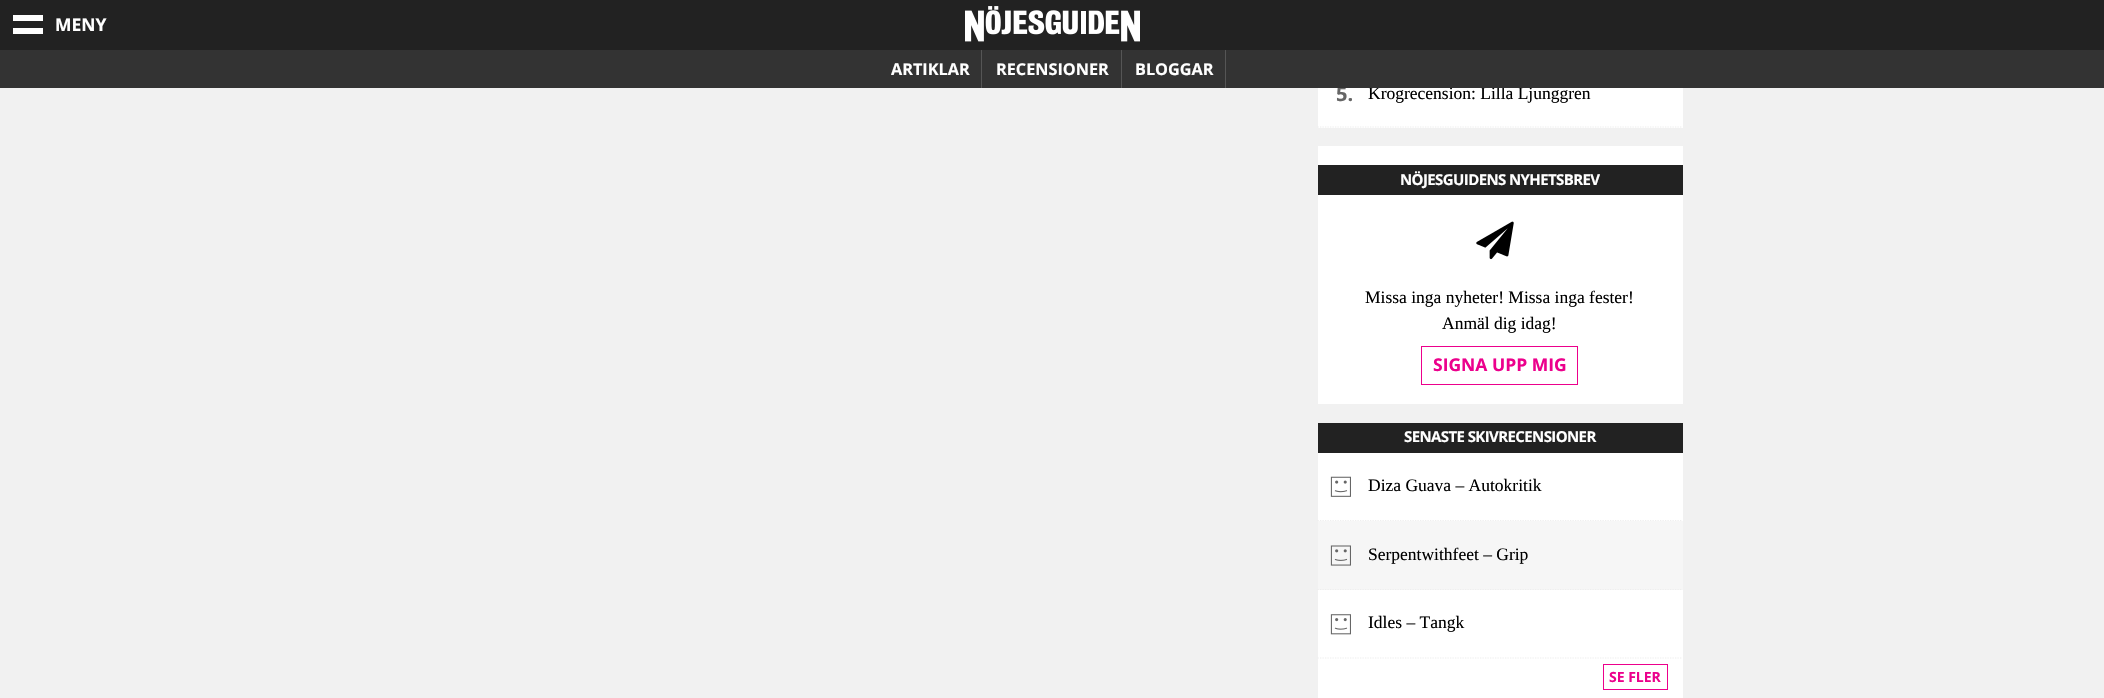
void draw(SkCanvas* canvas) {
	SkPaint paint;
	paint.setAntiAlias(true);
	auto spacedText = [&](const char* s, float x, float y, const SkFont& font, const SkPaint& ink, float letter, float word) {
		std::vector<SkGlyphID> glyphs(font.countText(s, strlen(s), SkTextEncoding::kUTF8));
		std::vector<float> xs(glyphs.size());
		font.textToGlyphs(s, strlen(s), SkTextEncoding::kUTF8, glyphs);
		font.getXPos(glyphs, xs, x);
		float extra = 0;
		for (size_t i = 0; i < glyphs.size(); i++) {
			xs[i] += extra;
			extra += letter + word * (glyphs[i] == font.unicharToGlyph(' '));
		}
		canvas->drawTextBlob(SkTextBlob::MakeFromPosHGlyphs(glyphs, xs, y, font), 0, 0, ink);
	};
	auto svgPath = [&](const char* data, bool evenOdd = false) {
		SkPath result = *SkParsePath::FromSVGString(data);
		if (evenOdd) result.setFillType(SkPathFillType::kEvenOdd);
		return result;
	};
	canvas->clear(0xfff1f1f1);
	paint.setColor(0xff222222);
	canvas->drawRect(SkRect::MakeXYWH(0, 0, 2104, 50), paint);
	paint.setColor(0xffffffff);
	canvas->drawRect(SkRect::MakeXYWH(13, 15, 30, 6), paint);
	canvas->drawRect(SkRect::MakeXYWH(13, 28, 30, 6), paint);
	SkFont f1(fontMgr->matchFamilyStyle("Open Sans", SkFontStyle::Bold()), 17.5);
	f1.setSubpixel(true);
	canvas->drawString("MENY", 55, 31, f1, paint);
	canvas->drawImageRect(SkImages::DeferredFromEncodedData(SkData::MakeFromFileName("img1.png")), SkRect::MakeXYWH(965, 6, 175, 36), SkSamplingOptions());
	canvas->drawRect(SkRect::MakeXYWH(1318, 88, 365, 40), paint);
	SkFont f2(fontMgr->matchFamilyStyle("Open Sans", SkFontStyle::Bold()), 20);
	f2.setSubpixel(true);
	paint.setColor(0xff666666);
	canvas->drawString("5.", 1336, 101, f2, paint);
	SkFont f3(fontMgr->matchFamilyStyle("Liberation Serif", SkFontStyle::Normal()), 17.5);
	f3.setSubpixel(true);
	paint.setColor(0xff000000);
	canvas->drawString("Krogrecension: Lilla Ljunggren", 1368, 99, f3, paint);
	paint.setColor(0xff333333);
	canvas->drawRect(SkRect::MakeXYWH(0, 50, 2104, 38), paint);
	paint.setColor(0xff555555);
	canvas->drawRect(SkRect::MakeXYWH(981, 50, 1, 38), paint);
	SkFont f4(fontMgr->matchFamilyStyle("Open Sans", SkFontStyle::Bold()), 16.25);
	f4.setSubpixel(true);
	paint.setColor(0xffffffff);
	canvas->drawString("ARTIKLAR", 891, 75, f4, paint);
	paint.setColor(0xff555555);
	canvas->drawRect(SkRect::MakeXYWH(1121, 50, 1, 38), paint);
	paint.setColor(0xffffffff);
	canvas->drawString("RECENSIONER", 996, 75, f4, paint);
	paint.setColor(0xff555555);
	canvas->drawRect(SkRect::MakeXYWH(1225, 50, 1, 38), paint);
	paint.setColor(0xffffffff);
	canvas->drawString("BLOGGAR", 1135, 75, f4, paint);
	paint.setStroke(true);
	paint.setStrokeWidth(1.2);
	paint.setColor(0xffeeeeee);
	paint.setPathEffect(SkDashPathEffect::Make({{1.25f, 1.25f}}, 0));
	canvas->drawPath(svgPath("M1317.5 127H1682.5"), paint);
	paint.setPathEffect(nullptr);
	paint.setStroke(false);
	paint.setColor(0xffffffff);
	canvas->drawRect(SkRect::MakeXYWH(1318, 146, 365, 258), paint);
	paint.setColor(0xff222222);
	canvas->drawRect(SkRect::MakeXYWH(1318, 165, 365, 30), paint);
	SkFont f5(fontMgr->matchFamilyStyle("Open Sans", SkFontStyle::Bold()), 15);
	f5.setSubpixel(true);
	paint.setColor(0xffffffff);
	spacedText("NÖJESGUIDENS NYHETSBREV", 1400, 185, f5, paint, -0.6, 0);
	canvas->drawImageRect(SkImages::DeferredFromEncodedData(SkData::MakeFromFileName("img2.png")), SkRect::MakeXYWH(1476, 221, 38, 39), SkSamplingOptions());
	paint.setColor(0xff000000);
	canvas->drawString("Missa inga nyheter! Missa inga fester!", 1365, 303, f3, paint);
	canvas->drawString("Anmäl dig idag!", 1442, 329, f3, paint);
	paint.setStroke(true);
	paint.setStrokeWidth(1);
	paint.setColor(0xffec008c);
	canvas->drawRect(SkRect::MakeXYWH(1421.5, 346.5, 156, 38), paint);
	paint.setStroke(false);
	canvas->drawString("SIGNA UPP MIG", 1433, 371, f1, paint);
	paint.setColor(0xffffffff);
	canvas->drawRect(SkRect::MakeXYWH(1318, 453, 365, 245), paint);
	paint.setColor(0xff222222);
	canvas->drawRect(SkRect::MakeXYWH(1318, 423, 365, 30), paint);
	paint.setColor(0xffffffff);
	spacedText("SENASTE SKIVRECENSIONER", 1404, 442, f5, paint, -0.6, 0);
	paint.setStroke(true);
	paint.setStrokeWidth(1.2);
	paint.setColor(0xffeeeeee);
	paint.setPathEffect(SkDashPathEffect::Make({{1.25f, 1.25f}}, 0));
	canvas->drawPath(svgPath("M1317.5 520.5H1682.5"), paint);
	paint.setPathEffect(nullptr);
	canvas->drawImageRect(SkImages::DeferredFromEncodedData(SkData::MakeFromFileName("img3.png")), SkRect::MakeXYWH(1330, 476, 21, 21), SkSamplingOptions());
	paint.setStroke(false);
	paint.setColor(0xff000000);
	canvas->drawString("Diza Guava – Autokritik", 1368, 491, f3, paint);
	paint.setColor(0xfff6f6f6);
	canvas->drawRect(SkRect::MakeXYWH(1318, 521, 365, 69), paint);
	paint.setStroke(true);
	paint.setColor(0xffeeeeee);
	paint.setPathEffect(SkDashPathEffect::Make({{1.25f, 1.25f}}, 0));
	canvas->drawPath(svgPath("M1317.5 589.5H1682.5"), paint);
	paint.setPathEffect(nullptr);
	canvas->drawImageRect(SkImages::DeferredFromEncodedData(SkData::MakeFromFileName("img4.png")), SkRect::MakeXYWH(1330, 545, 21, 21), SkSamplingOptions());
	paint.setStroke(false);
	paint.setColor(0xff000000);
	canvas->drawString("Serpentwithfeet – Grip", 1368, 560, f3, paint);
	paint.setStroke(true);
	paint.setColor(0xffeeeeee);
	paint.setPathEffect(SkDashPathEffect::Make({{1.25f, 1.25f}}, 0));
	canvas->drawPath(svgPath("M1317.5 658H1682.5"), paint);
	paint.setPathEffect(nullptr);
	canvas->drawImageRect(SkImages::DeferredFromEncodedData(SkData::MakeFromFileName("img5.png")), SkRect::MakeXYWH(1330, 614, 21, 21), SkSamplingOptions());
	paint.setStroke(false);
	paint.setColor(0xff000000);
	canvas->drawString("Idles – Tangk", 1368, 628, f3, paint);
	paint.setStroke(true);
	paint.setStrokeWidth(1);
	paint.setColor(0xffec008c);
	canvas->drawRect(SkRect::MakeXYWH(1603.5, 664.5, 64, 25), paint);
	SkFont f6(fontMgr->matchFamilyStyle("Open Sans", SkFontStyle::Bold()), 14);
	f6.setSubpixel(true);
	paint.setStroke(false);
	canvas->drawString("SE FLER", 1609, 682, f6, paint);
}
